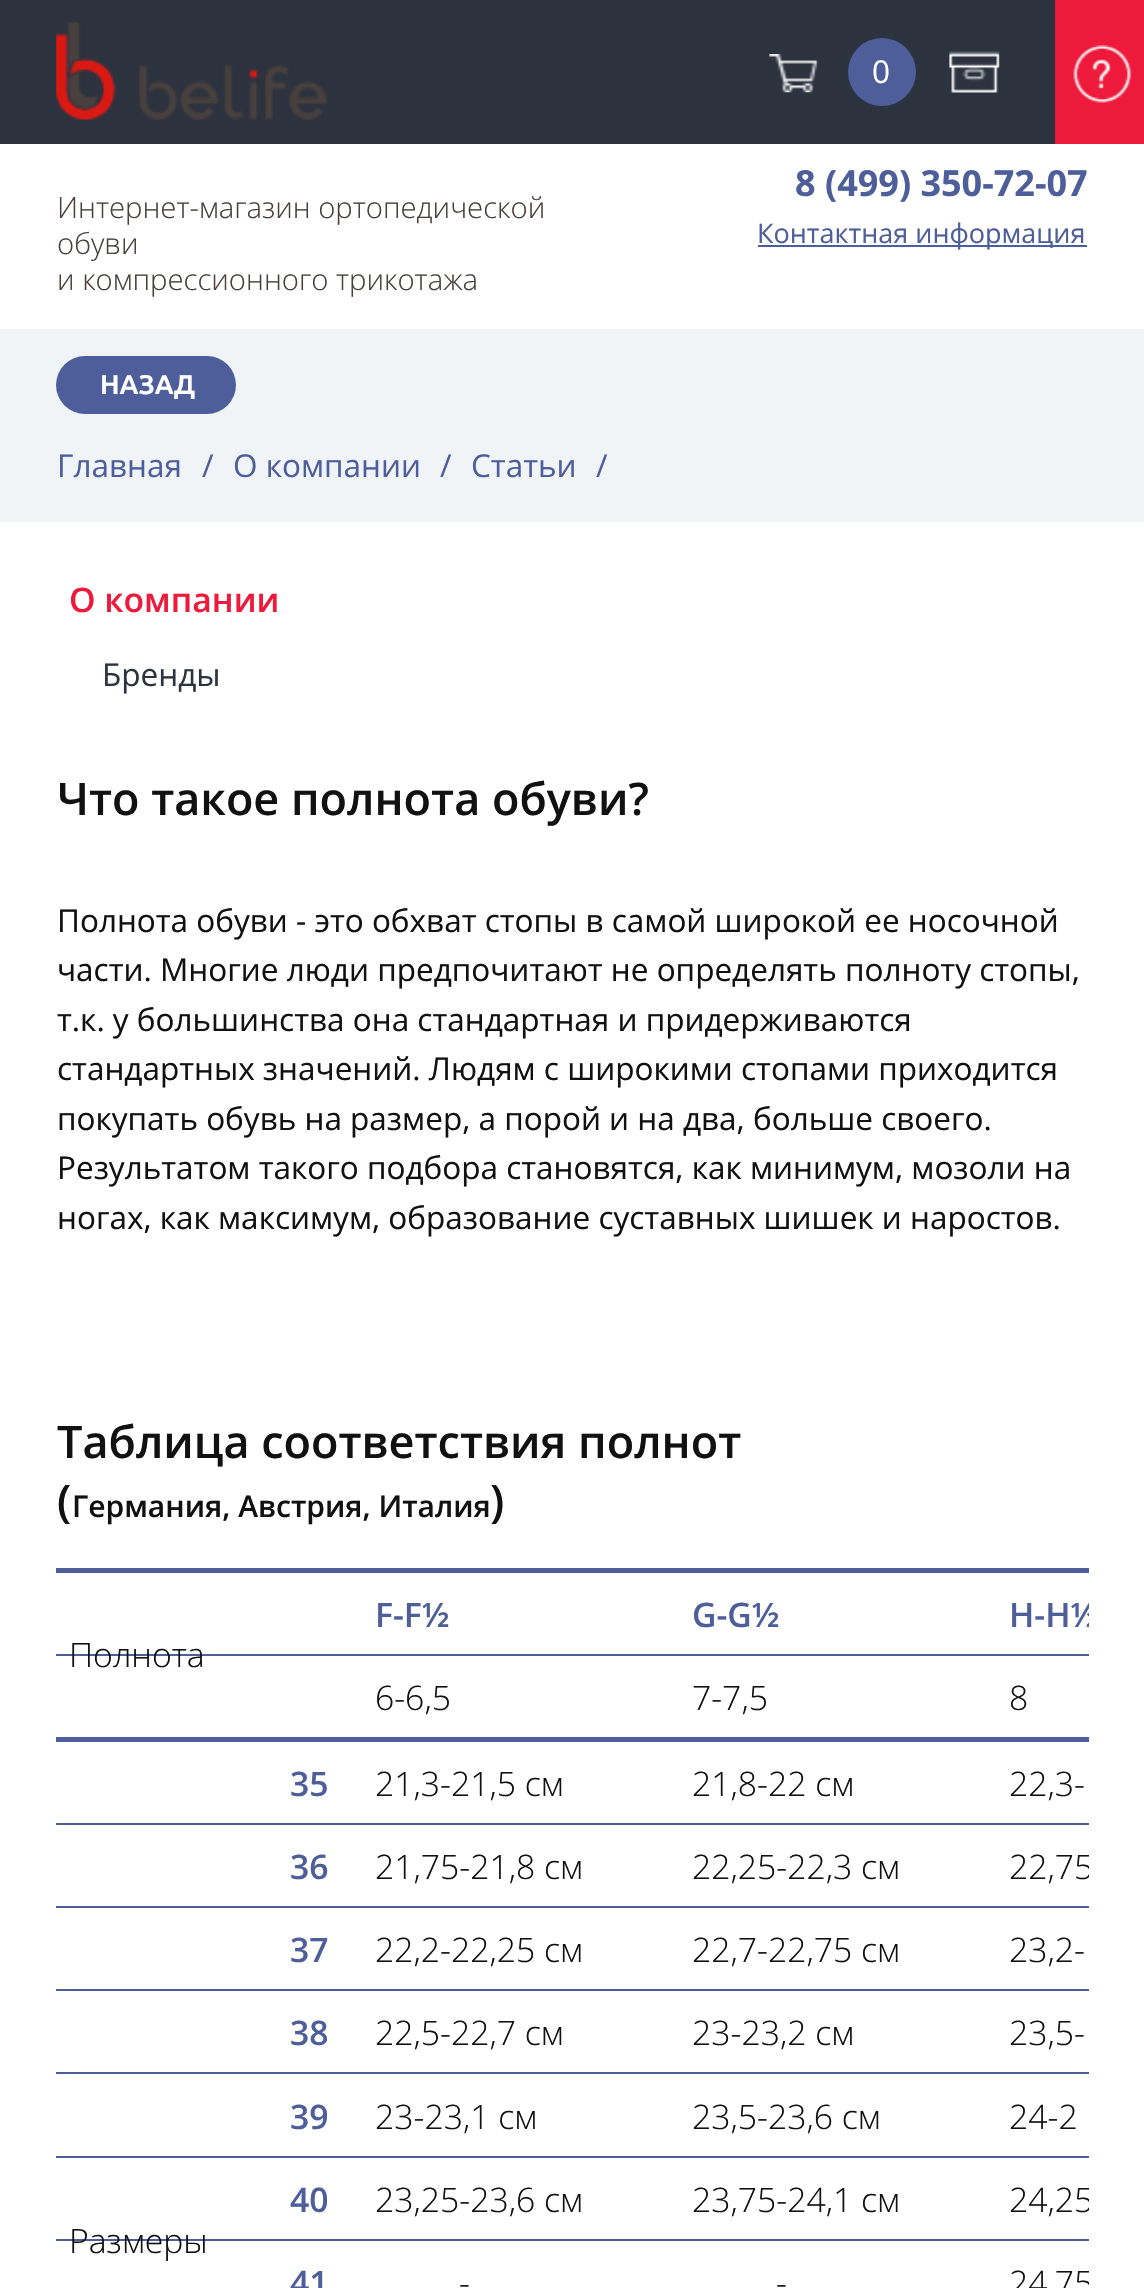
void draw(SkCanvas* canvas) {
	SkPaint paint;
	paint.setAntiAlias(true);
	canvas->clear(0xffffffff);
	paint.setColor(0xff2d323f);
	canvas->drawRect(SkRect::MakeXYWH(0, 0, 1055, 144), paint);
	canvas->drawImageRect(SkImages::DeferredFromEncodedData(SkData::MakeFromFileName("img1.png")), SkRect::MakeXYWH(56, 22, 271, 98), SkSamplingOptions());
	canvas->drawImageRect(SkImages::DeferredFromEncodedData(SkData::MakeFromFileName("img2.png")), SkRect::MakeXYWH(769, 54, 49, 39), SkSamplingOptions());
	paint.setColor(0xff4d5e9a);
	canvas->drawCircle(882, 72, 34, paint);
	SkFont f1(fontMgr->matchFamilyStyle("Open Sans", SkFontStyle::Normal()), 31.5);
	f1.setSubpixel(true);
	paint.setColor(0xffffffff);
	canvas->drawString("0", 872, 83, f1, paint);
	canvas->drawImageRect(SkImages::DeferredFromEncodedData(SkData::MakeFromFileName("img3.png")), SkRect::MakeXYWH(949, 51, 51, 42), SkSamplingOptions());
	paint.setColor(0xffed1a3b);
	canvas->drawRect(SkRect::MakeXYWH(1055, 0, 89, 144), paint);
	canvas->drawImageRect(SkImages::DeferredFromEncodedData(SkData::MakeFromFileName("img4.png")), SkRect::MakeXYWH(1073, 45, 59, 58), SkSamplingOptions());
	SkFont f2(fontMgr->matchFamilyStyle("Open Sans", SkFontStyle(300, SkFontStyle::kNormal_Width, SkFontStyle::kUpright_Slant)), 29.25);
	f2.setSubpixel(true);
	paint.setColor(0xff47403d);
	canvas->drawString("Интернет-магазин ортопедической", 57, 218, f2, paint);
	canvas->drawString("обуви", 57, 254, f2, paint);
	canvas->drawString("и компрессионного трикотажа", 57, 290, f2, paint);
	SkFont f3(fontMgr->matchFamilyStyle("Open Sans", SkFontStyle::Bold()), 36);
	f3.setSubpixel(true);
	paint.setColor(0xff4d5e9a);
	canvas->drawString("8 (499) 350-72-07", 795, 196, f3, paint);
	canvas->drawRect(SkRect::MakeXYWH(758, 245, 329, 2), paint);
	SkFont f4(fontMgr->matchFamilyStyle("Open Sans", SkFontStyle::Normal()), 27);
	f4.setSubpixel(true);
	canvas->drawString("Контактная информация", 757, 243, f4, paint);
	paint.setColor(0xfff0f4f7);
	canvas->drawRect(SkRect::MakeXYWH(0, 329, 1144, 193), paint);
	paint.setColor(0xff4d5e9a);
	canvas->drawRoundRect(SkRect::MakeXYWH(56, 356, 180, 58), 29, 29, paint);
	SkFont f5(fontMgr->matchFamilyStyle("Ubuntu", SkFontStyle::Bold()), 27);
	f5.setSubpixel(true);
	paint.setColor(0xffffffff);
	canvas->drawString("НАЗАД", 100, 394, f5, paint);
	paint.setColor(0xff4d5e9a);
	canvas->drawString("Главная", 57, 477, f1, paint);
	canvas->drawString("/", 202, 477, f1, paint);
	canvas->drawString("О компании", 233, 477, f1, paint);
	canvas->drawString("/", 440, 477, f1, paint);
	canvas->drawString("Статьи", 471, 477, f1, paint);
	canvas->drawString("/", 596, 477, f1, paint);
	SkFont f6(fontMgr->matchFamilyStyle("Open Sans", SkFontStyle(600, SkFontStyle::kNormal_Width, SkFontStyle::kUpright_Slant)), 33.75);
	f6.setSubpixel(true);
	paint.setColor(0xffed1a3b);
	canvas->drawString("О компании", 69, 612, f6, paint);
	paint.setColor(0xff2d323f);
	canvas->drawString("Бренды", 102, 686, f1, paint);
	SkFont f7(fontMgr->matchFamilyStyle("Open Sans", SkFontStyle(600, SkFontStyle::kNormal_Width, SkFontStyle::kUpright_Slant)), 45);
	f7.setSubpixel(true);
	paint.setColor(0xff111111);
	canvas->drawString("Что такое полнота обуви?", 57, 815, f7, paint);
	canvas->drawString("Полнота обуви - это обхват стопы в самой широкой ее носочной", 57, 932, f1, paint);
	canvas->drawString("части. Многие люди предпочитают не определять полноту стопы,", 57, 981, f1, paint);
	canvas->drawString("т.к. у большинства она стандартная и придерживаются", 57, 1031, f1, paint);
	canvas->drawString("стандартных значений. Людям с широкими стопами приходится", 57, 1080, f1, paint);
	canvas->drawString("покупать обувь на размер, а порой и на два, больше своего.", 57, 1130, f1, paint);
	canvas->drawString("Результатом такого подбора становятся, как минимум, мозоли на", 57, 1179, f1, paint);
	canvas->drawString("ногах, как максимум, образование суставных шишек и наростов.", 57, 1229, f1, paint);
	canvas->drawString("Таблица соответствия полнот", 57, 1458, f7, paint);
	canvas->drawString("(", 57, 1517, f7, paint);
	SkFont f8(fontMgr->matchFamilyStyle("Open Sans", SkFontStyle(600, SkFontStyle::kNormal_Width, SkFontStyle::kUpright_Slant)), 30);
	f8.setSubpixel(true);
	canvas->drawString("Германия, Австрия, Италия", 72, 1517, f8, paint);
	canvas->drawString(")", 490, 1517, f7, paint);
	paint.setColor(0xff4d5e9a);
	canvas->drawRect(SkRect::MakeXYWH(56, 1654, 1033, 2), paint);
	canvas->drawRect(SkRect::MakeXYWH(56, 1568, 1033, 5), paint);
	canvas->drawString("F-F½", 375, 1627, f6, paint);
	canvas->drawString("G-G½", 692, 1627, f6, paint);
	canvas->save();
	canvas->clipRect(SkRect::MakeXYWH(56, 567, 1033, 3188));
	canvas->drawString("H-H½", 1009, 1627, f6, paint);
	canvas->restore();
	SkFont f9(fontMgr->matchFamilyStyle("Open Sans", SkFontStyle(300, SkFontStyle::kNormal_Width, SkFontStyle::kUpright_Slant)), 33.75);
	f9.setSubpixel(true);
	paint.setColor(0xff111111);
	canvas->drawString("Полнота", 69, 1667, f9, paint);
	paint.setColor(0xff4d5e9a);
	canvas->drawRect(SkRect::MakeXYWH(56, 1737, 1033, 5), paint);
	paint.setColor(0xff111111);
	canvas->drawString("6-6,5", 375, 1710, f9, paint);
	canvas->drawString("7-7,5", 692, 1710, f9, paint);
	canvas->drawString("8", 1009, 1710, f9, paint);
	paint.setColor(0xff4d5e9a);
	canvas->drawRect(SkRect::MakeXYWH(56, 1823, 1033, 2), paint);
	canvas->drawString("35", 290, 1796, f6, paint);
	paint.setColor(0xff111111);
	canvas->drawString("21,3-21,5 см", 375, 1796, f9, paint);
	canvas->drawString("21,8-22 см", 692, 1796, f9, paint);
	canvas->drawString("22,3-", 1009, 1796, f9, paint);
	paint.setColor(0xff4d5e9a);
	canvas->drawRect(SkRect::MakeXYWH(56, 2239, 1033, 2), paint);
	paint.setColor(0xff111111);
	canvas->drawString("Размеры", 69, 2253, f9, paint);
	paint.setColor(0xff4d5e9a);
	canvas->drawRect(SkRect::MakeXYWH(56, 1906, 1033, 2), paint);
	canvas->drawString("36", 290, 1879, f6, paint);
	paint.setColor(0xff111111);
	canvas->drawString("21,75-21,8 см", 375, 1879, f9, paint);
	canvas->drawString("22,25-22,3 см", 692, 1879, f9, paint);
	canvas->save();
	canvas->clipRect(SkRect::MakeXYWH(56, 567, 1033, 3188));
	canvas->drawString("22,75", 1009, 1879, f9, paint);
	canvas->restore();
	paint.setColor(0xff4d5e9a);
	canvas->drawRect(SkRect::MakeXYWH(56, 1989, 1033, 2), paint);
	canvas->drawString("37", 290, 1962, f6, paint);
	paint.setColor(0xff111111);
	canvas->drawString("22,2-22,25 см", 375, 1962, f9, paint);
	canvas->drawString("22,7-22,75 см", 692, 1962, f9, paint);
	canvas->drawString("23,2-", 1009, 1962, f9, paint);
	paint.setColor(0xff4d5e9a);
	canvas->drawRect(SkRect::MakeXYWH(56, 2072, 1033, 2), paint);
	canvas->drawString("38", 290, 2045, f6, paint);
	paint.setColor(0xff111111);
	canvas->drawString("22,5-22,7 см", 375, 2045, f9, paint);
	canvas->drawString("23-23,2 см", 692, 2045, f9, paint);
	canvas->drawString("23,5-", 1009, 2045, f9, paint);
	paint.setColor(0xff4d5e9a);
	canvas->drawRect(SkRect::MakeXYWH(56, 2156, 1033, 2), paint);
	canvas->drawString("39", 290, 2129, f6, paint);
	paint.setColor(0xff111111);
	canvas->drawString("23-23,1 см", 375, 2129, f9, paint);
	canvas->drawString("23,5-23,6 см", 692, 2129, f9, paint);
	canvas->drawString("24-2", 1009, 2129, f9, paint);
	paint.setColor(0xff4d5e9a);
	canvas->drawString("40", 290, 2212, f6, paint);
	paint.setColor(0xff111111);
	canvas->drawString("23,25-23,6 см", 375, 2212, f9, paint);
	canvas->drawString("23,75-24,1 см", 692, 2212, f9, paint);
	canvas->save();
	canvas->clipRect(SkRect::MakeXYWH(56, 567, 1033, 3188));
	canvas->drawString("24,25", 1009, 2212, f9, paint);
	canvas->restore();
	paint.setColor(0xff4d5e9a);
	canvas->drawString("41", 290, 2295, f6, paint);
	paint.setColor(0xff111111);
	canvas->drawString("-", 459, 2295, f9, paint);
	canvas->drawString("-", 776, 2295, f9, paint);
	canvas->save();
	canvas->clipRect(SkRect::MakeXYWH(56, 567, 1033, 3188));
	canvas->drawString("24,75", 1009, 2295, f9, paint);
	canvas->restore();
}
